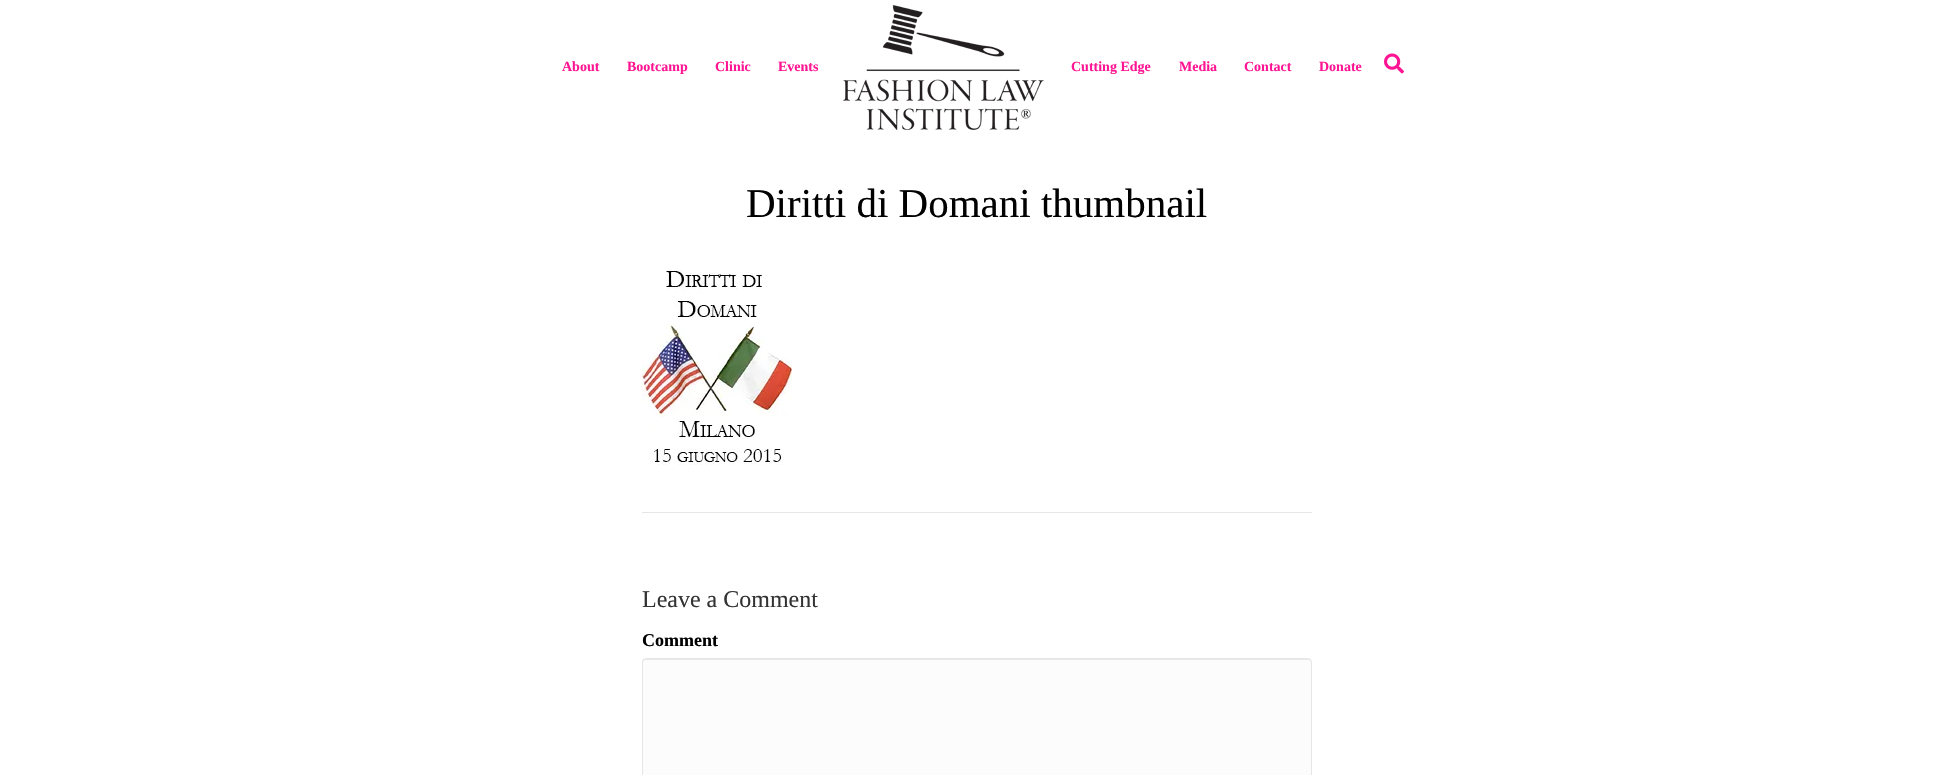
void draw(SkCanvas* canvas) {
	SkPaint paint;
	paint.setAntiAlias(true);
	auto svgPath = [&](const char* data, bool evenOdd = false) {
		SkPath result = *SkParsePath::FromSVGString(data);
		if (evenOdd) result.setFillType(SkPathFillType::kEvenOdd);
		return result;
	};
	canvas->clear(0xffffffff);
	SkFont f1(fontMgr->matchFamilyStyle("Liberation Serif", SkFontStyle::Bold()), 14);
	f1.setSubpixel(true);
	paint.setColor(0xffff1493);
	canvas->drawString("About", 562, 71, f1, paint);
	canvas->drawString("Bootcamp", 627, 71, f1, paint);
	canvas->drawString("Clinic", 715, 71, f1, paint);
	canvas->drawString("Events", 778, 71, f1, paint);
	canvas->drawImageRect(SkImages::DeferredFromEncodedData(SkData::MakeFromFileName("img1.png")), SkRect::MakeXYWH(843, 5, 201, 125), SkSamplingOptions());
	canvas->drawString("Cutting Edge", 1071, 71, f1, paint);
	canvas->drawString("Media", 1179, 71, f1, paint);
	canvas->drawString("Contact", 1244, 71, f1, paint);
	canvas->drawString("Donate", 1319, 71, f1, paint);
	canvas->drawImageRect(SkImages::DeferredFromEncodedData(SkData::MakeFromFileName("img2.png")), SkRect::MakeXYWH(1384, 53, 20, 21), SkSamplingOptions());
	SkFont f2(fontMgr->matchFamilyStyle("Liberation Serif", SkFontStyle::Normal()), 41);
	f2.setSubpixel(true);
	paint.setColor(0xff000000);
	canvas->drawString("Diritti di Domani thumbnail", 746, 217, f2, paint);
	canvas->drawImageRect(SkImages::DeferredFromEncodedData(SkData::MakeFromFileName("img3.png")), SkRect::MakeXYWH(642, 269, 150, 196), SkSamplingOptions());
	paint.setColor(0xffe6e6e6);
	canvas->drawRect(SkRect::MakeXYWH(642, 512, 670, 1), paint);
	SkFont f3(fontMgr->matchFamilyStyle("Liberation Serif", SkFontStyle::Normal()), 24);
	f3.setSubpixel(true);
	paint.setColor(0xff333333);
	canvas->drawString("Leave a Comment", 642, 607, f3, paint);
	SkFont f4(fontMgr->matchFamilyStyle("Liberation Serif", SkFontStyle::Bold()), 18);
	f4.setSubpixel(true);
	paint.setColor(0xff000000);
	canvas->drawString("Comment", 642, 646, f4, paint);
	paint.setColor(0xfffcfcfc);
	canvas->drawRoundRect(SkRect::MakeXYWH(642, 658, 670, 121), 4, 4, paint);
	paint.setColor(0xffe9e9e9);
	canvas->drawPath(svgPath("M646 660H1308C1310 660 1311 661 1311 663V662C1311 660 1310 659 1308 659H646C644 659 643 660 643 662V663C643 661 644 660 646 660Z"), paint);
	paint.setStroke(true);
	paint.setStrokeWidth(1);
	paint.setColor(0xffe6e6e6);
	canvas->drawRoundRect(SkRect::MakeXYWH(642.5, 658.5, 669, 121), 3.5, 3.5, paint);
}
